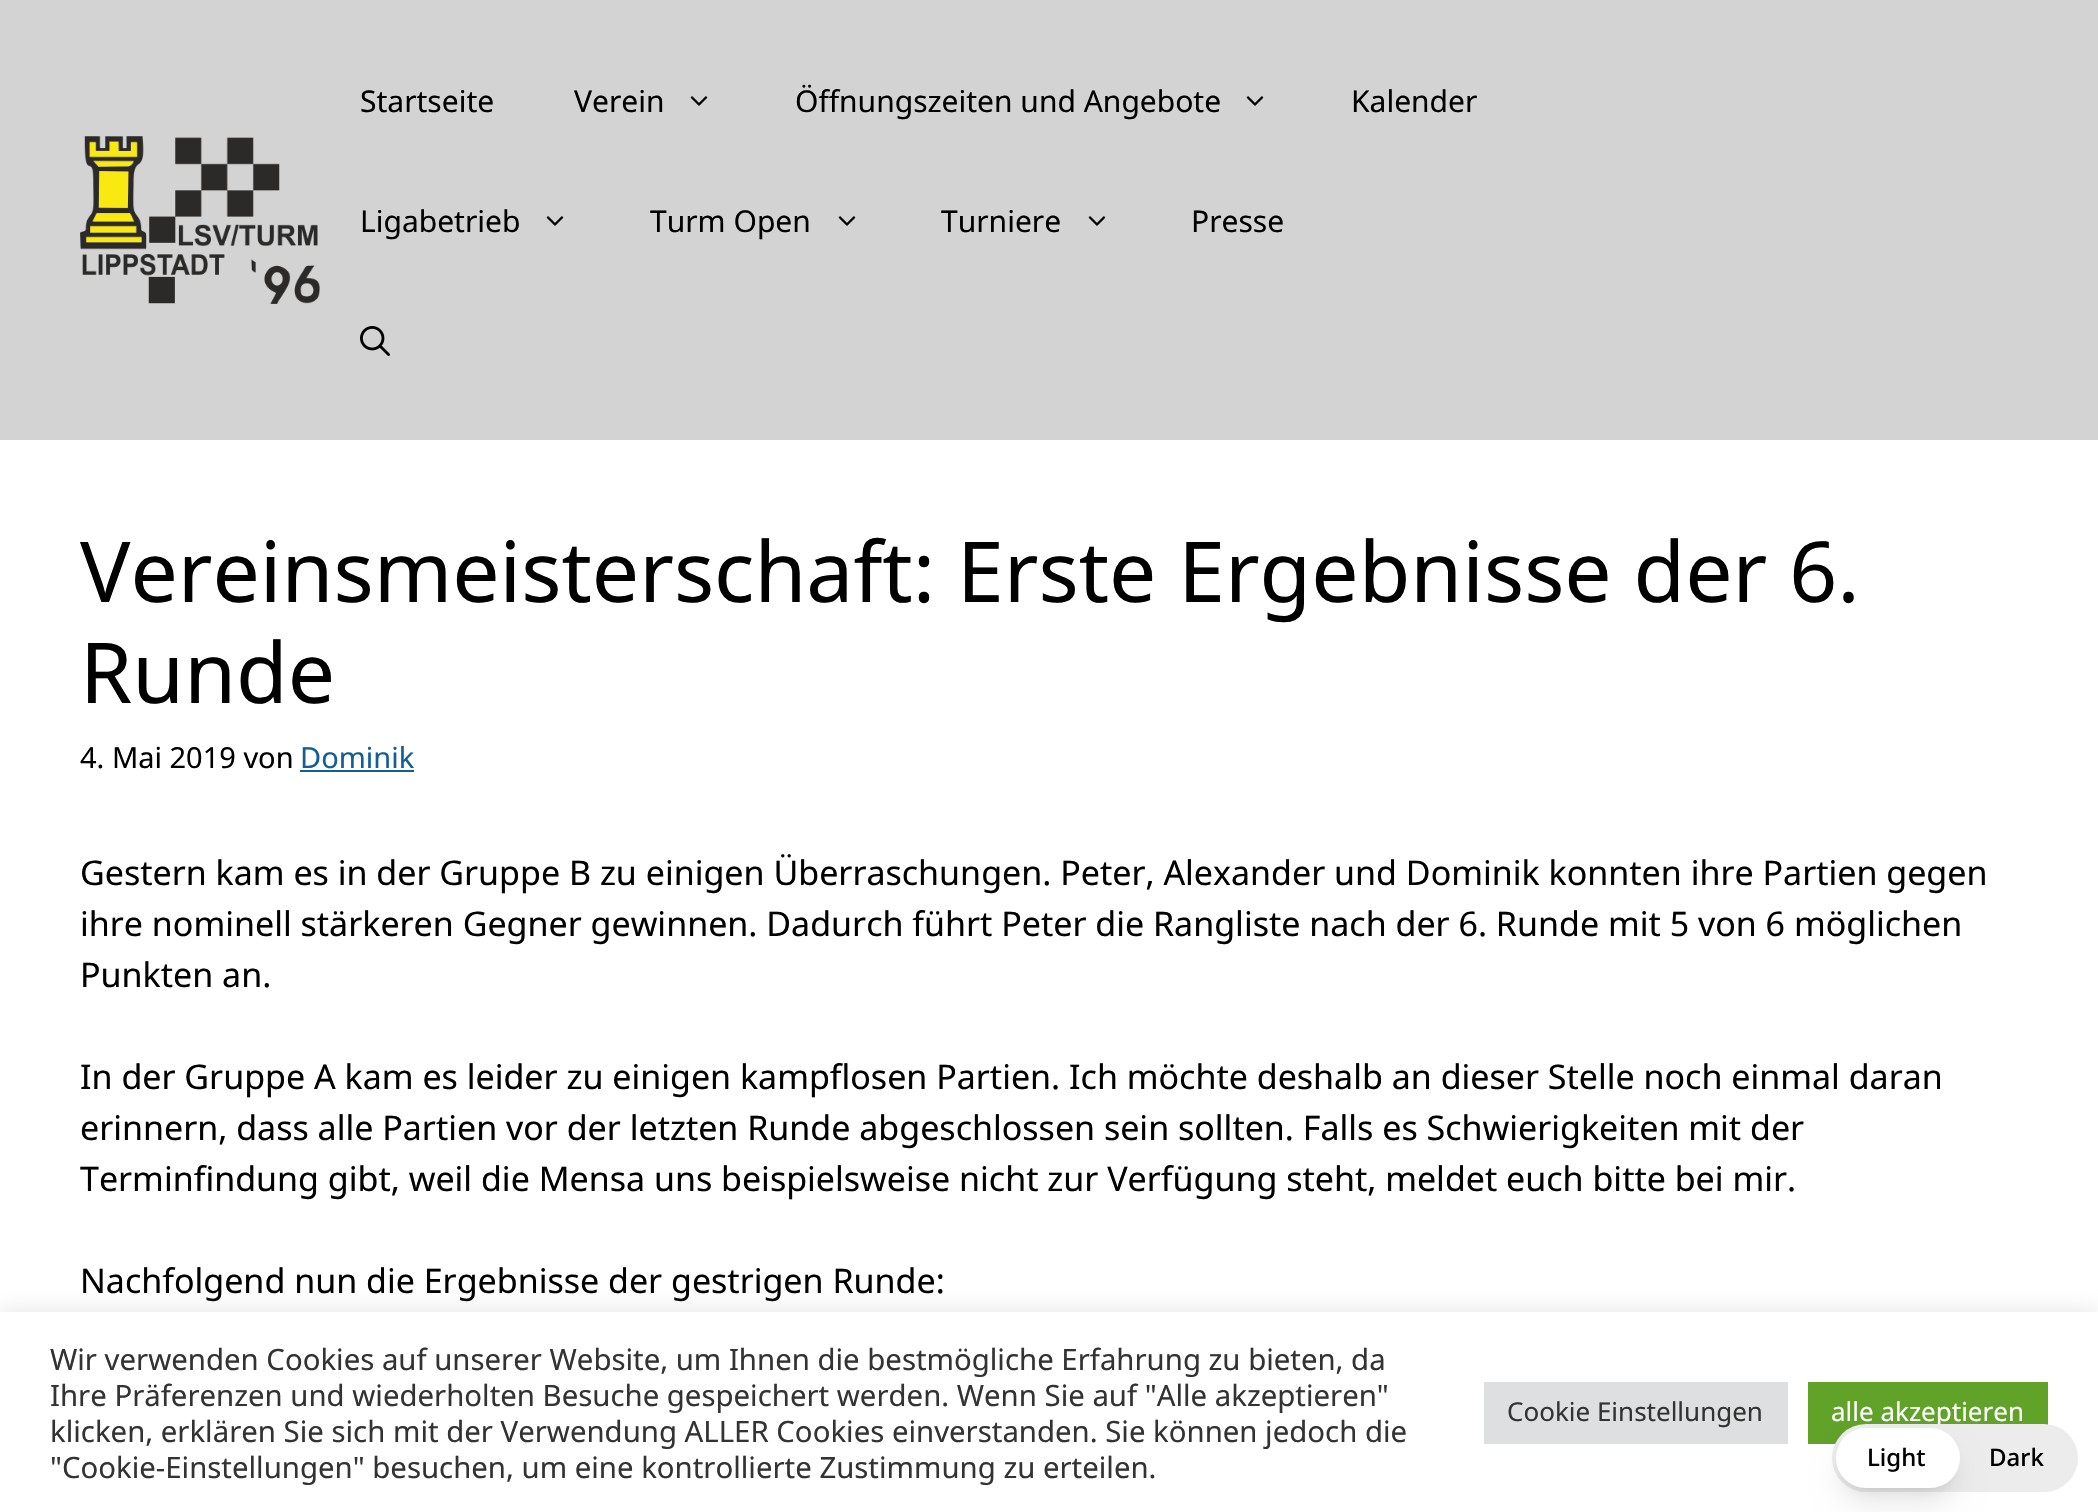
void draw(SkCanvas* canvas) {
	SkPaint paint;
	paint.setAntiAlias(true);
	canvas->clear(0xffffffff);
	paint.setColor(0xffd3d3d3);
	canvas->drawRect(SkRect::MakeXYWH(0, 0, 2098, 440), paint);
	canvas->drawImageRect(SkImages::DeferredFromEncodedData(SkData::MakeFromFileName("img1.png")), SkRect::MakeXYWH(80, 136, 240, 168), SkSamplingOptions());
	SkFont f1(fontMgr->matchFamilyStyle("Noto Sans", SkFontStyle::Normal()), 30);
	f1.setSubpixel(true);
	paint.setColor(0xff000000);
	canvas->drawString("Startseite", 360, 112, f1, paint);
	canvas->drawString("Verein", 574, 112, f1, paint);
	canvas->drawImageRect(SkImages::DeferredFromEncodedData(SkData::MakeFromFileName("img2.png")), SkRect::MakeXYWH(690, 96, 18, 10), SkSamplingOptions());
	canvas->drawString("Öffnungszeiten und Angebote", 795, 112, f1, paint);
	canvas->drawImageRect(SkImages::DeferredFromEncodedData(SkData::MakeFromFileName("img2.png")), SkRect::MakeXYWH(1246, 96, 18, 10), SkSamplingOptions());
	canvas->drawString("Kalender", 1351, 112, f1, paint);
	canvas->drawString("Ligabetrieb", 360, 232, f1, paint);
	canvas->drawImageRect(SkImages::DeferredFromEncodedData(SkData::MakeFromFileName("img2.png")), SkRect::MakeXYWH(546, 216, 18, 10), SkSamplingOptions());
	canvas->drawString("Turm Open", 650, 232, f1, paint);
	canvas->drawImageRect(SkImages::DeferredFromEncodedData(SkData::MakeFromFileName("img2.png")), SkRect::MakeXYWH(838, 216, 18, 10), SkSamplingOptions());
	canvas->drawString("Turniere", 941, 232, f1, paint);
	canvas->drawImageRect(SkImages::DeferredFromEncodedData(SkData::MakeFromFileName("img2.png")), SkRect::MakeXYWH(1088, 216, 18, 10), SkSamplingOptions());
	canvas->drawString("Presse", 1191, 232, f1, paint);
	canvas->drawImageRect(SkImages::DeferredFromEncodedData(SkData::MakeFromFileName("img3.png")), SkRect::MakeXYWH(360, 326, 30, 30), SkSamplingOptions());
	SkFont f2(fontMgr->matchFamilyStyle("Noto Sans", SkFontStyle::Normal()), 84);
	f2.setSubpixel(true);
	canvas->drawString("Vereinsmeisterschaft: Erste Ergebnisse der 6.", 80, 602, f2, paint);
	canvas->drawString("Runde", 80, 703, f2, paint);
	SkFont f3(fontMgr->matchFamilyStyle("Noto Sans", SkFontStyle::Normal()), 29);
	f3.setSubpixel(true);
	canvas->drawString("4. Mai 2019 von", 80, 768, f3, paint);
	paint.setColor(0xff135e96);
	canvas->drawString("Dominik", 300, 768, f3, paint);
	canvas->drawRect(SkRect::MakeXYWH(300, 770, 114, 2), paint);
	SkFont f4(fontMgr->matchFamilyStyle("Noto Sans", SkFontStyle::Normal()), 34);
	f4.setSubpixel(true);
	paint.setColor(0xff000000);
	canvas->drawString("Gestern kam es in der Gruppe B zu einigen Überraschungen. Peter, Alexander und Dominik konnten ihre Partien gegen", 80, 885, f4, paint);
	canvas->drawString("ihre nominell stärkeren Gegner gewinnen. Dadurch führt Peter die Rangliste nach der 6. Runde mit 5 von 6 möglichen", 80, 936, f4, paint);
	canvas->drawString("Punkten an.", 80, 987, f4, paint);
	canvas->drawString("In der Gruppe A kam es leider zu einigen kampflosen Partien. Ich möchte deshalb an dieser Stelle noch einmal daran", 80, 1089, f4, paint);
	canvas->drawString("erinnern, dass alle Partien vor der letzten Runde abgeschlossen sein sollten. Falls es Schwierigkeiten mit der", 80, 1140, f4, paint);
	canvas->drawString("Terminfindung gibt, weil die Mensa uns beispielsweise nicht zur Verfügung steht, meldet euch bitte bei mir.", 80, 1191, f4, paint);
	canvas->drawString("Nachfolgend nun die Ergebnisse der gestrigen Runde:", 80, 1293, f4, paint);
	paint.setColor(0x4dacabab);
	paint.setMaskFilter(SkMaskFilter::MakeBlur(kNormal_SkBlurStyle, 10));
	canvas->drawRect(SkRect::MakeXYWH(0, 1310, 2098, 200), paint);
	paint.setMaskFilter(nullptr);
	paint.setColor(0xffffffff);
	canvas->drawRect(SkRect::MakeXYWH(0, 1312, 2098, 200), paint);
	SkFont f5(fontMgr->matchFamilyStyle("Noto Sans", SkFontStyle::Normal()), 29.35);
	f5.setSubpixel(true);
	paint.setColor(0xff333333);
	canvas->drawString("Wir verwenden Cookies auf unserer Website, um Ihnen die bestmögliche Erfahrung zu bieten, da", 50, 1370, f5, paint);
	canvas->drawString("Ihre Präferenzen und wiederholten Besuche gespeichert werden. Wenn Sie auf \"Alle akzeptieren\"", 50, 1406, f5, paint);
	canvas->drawString("klicken, erklären Sie sich mit der Verwendung ALLER Cookies einverstanden. Sie können jedoch die", 50, 1442, f5, paint);
	canvas->drawString("\"Cookie-Einstellungen\" besuchen, um eine kontrollierte Zustimmung zu erteilen.", 50, 1478, f5, paint);
	paint.setColor(0xffdedfe0);
	canvas->drawRect(SkRect::MakeXYWH(1484, 1382, 304, 62), paint);
	SkFont f6(fontMgr->matchFamilyStyle("Noto Sans", SkFontStyle::Normal()), 26);
	f6.setSubpixel(true);
	paint.setColor(0xff333333);
	canvas->drawString("Cookie Einstellungen", 1507, 1421, f6, paint);
	paint.setColor(0xff61a229);
	canvas->drawRect(SkRect::MakeXYWH(1808, 1382, 240, 62), paint);
	paint.setColor(0xffffffff);
	canvas->drawString("alle akzeptieren", 1831, 1421, f6, paint);
	paint.setColor(0xffececec);
	canvas->drawRoundRect(SkRect::MakeXYWH(1832, 1424, 246, 68), 34, 34, paint);
	paint.setColor(0x1a000000);
	paint.setMaskFilter(SkMaskFilter::MakeBlur(kNormal_SkBlurStyle, 6));
	canvas->drawRoundRect(SkRect::MakeXYWH(1844, 1444, 108, 44), 22, 22, paint);
	paint.setMaskFilter(nullptr);
	paint.setMaskFilter(SkMaskFilter::MakeBlur(kNormal_SkBlurStyle, 15));
	canvas->drawRoundRect(SkRect::MakeXYWH(1842, 1454, 112, 48), 24, 24, paint);
	paint.setMaskFilter(nullptr);
	paint.setColor(0xffffffff);
	canvas->drawRoundRect(SkRect::MakeXYWH(1836, 1428, 124, 60), 30, 30, paint);
	SkFont f7(fontMgr->matchFamilyStyle("Noto Sans", SkFontStyle(500, SkFontStyle::kNormal_Width, SkFontStyle::kUpright_Slant)), 24);
	f7.setSubpixel(true);
	paint.setColor(0xff000000);
	canvas->drawString("Light", 1867, 1466, f7, paint);
	canvas->drawString("Dark", 1989, 1466, f7, paint);
}
